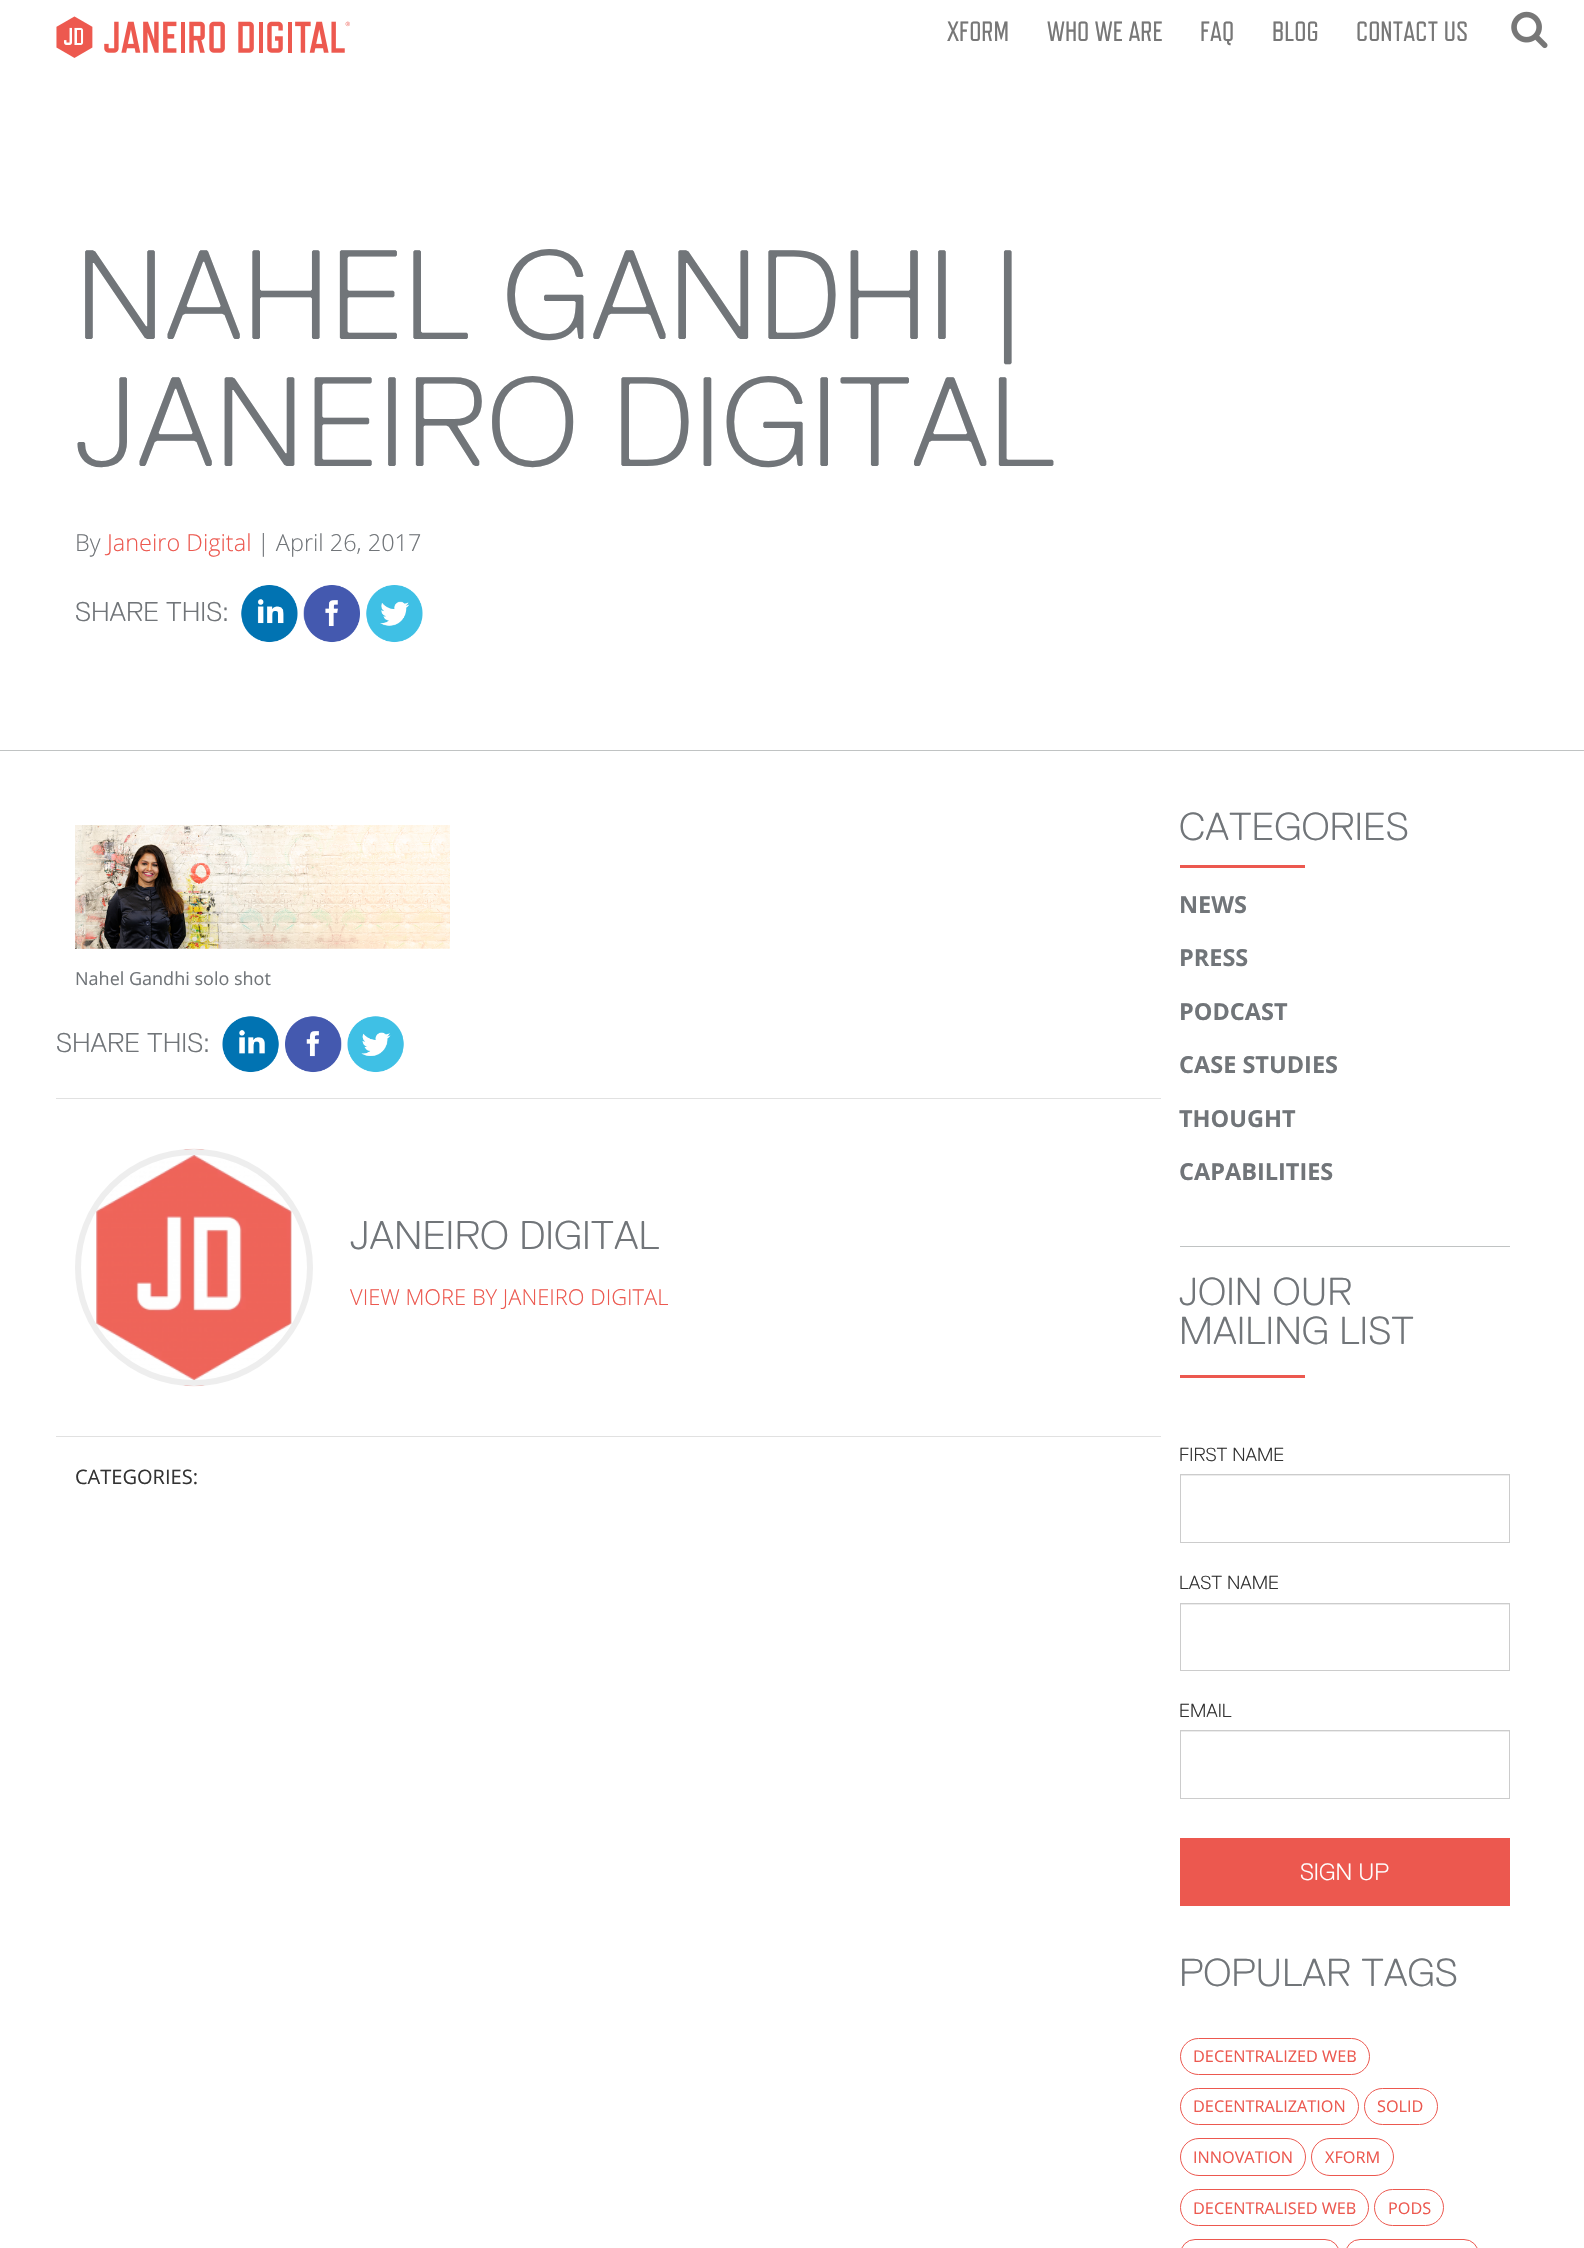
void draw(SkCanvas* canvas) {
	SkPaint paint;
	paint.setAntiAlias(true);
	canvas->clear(0xffffffff);
	canvas->drawImageRect(SkImages::DeferredFromEncodedData(SkData::MakeFromFileName("img1.png")), SkRect::MakeXYWH(56, 16, 294, 42), SkSamplingOptions());
	SkFont f1(fontMgr->matchFamilyStyle("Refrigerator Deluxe", SkFontStyle::Normal()), 28);
	f1.setSubpixel(true);
	paint.setColor(0xff777777);
	canvas->drawString("XFORM", 947, 41, f1, paint);
	canvas->drawString("WHO WE ARE", 1047, 41, f1, paint);
	canvas->drawString("FAQ", 1200, 41, f1, paint);
	canvas->drawString("BLOG", 1272, 41, f1, paint);
	canvas->drawString("CONTACT US", 1356, 41, f1, paint);
	canvas->drawImageRect(SkImages::DeferredFromEncodedData(SkData::MakeFromFileName("img2.png")), SkRect::MakeXYWH(1511, 11, 37, 38), SkSamplingOptions());
	paint.setColor(0xffc0c3c3);
	canvas->drawRect(SkRect::MakeXYWH(0, 750, 1584, 1), paint);
	SkFont f2(fontMgr->matchFamilyStyle("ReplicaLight", SkFontStyle(300, SkFontStyle::kNormal_Width, SkFontStyle::kUpright_Slant)), 126.75);
	f2.setSubpixel(true);
	paint.setColor(0xff717579);
	canvas->drawString("NAHEL GANDHI |", 75, 339, f2, paint);
	canvas->drawString("JANEIRO DIGITAL", 75, 466, f2, paint);
	SkFont f3(fontMgr->matchFamilyStyle("Open Sans", SkFontStyle(300, SkFontStyle::kNormal_Width, SkFontStyle::kUpright_Slant)), 23.5);
	f3.setSubpixel(true);
	canvas->drawString("By", 75, 551, f3, paint);
	paint.setColor(0xffec584f);
	canvas->drawString("Janeiro Digital", 107, 551, f3, paint);
	paint.setColor(0xff717579);
	canvas->drawString("| April 26, 2017", 257, 551, f3, paint);
	SkFont f4(fontMgr->matchFamilyStyle("ReplicaLight", SkFontStyle(300, SkFontStyle::kNormal_Width, SkFontStyle::kUpright_Slant)), 27);
	f4.setSubpixel(true);
	canvas->drawString("SHARE THIS:", 75, 621, f4, paint);
	canvas->drawImageRect(SkImages::DeferredFromEncodedData(SkData::MakeFromFileName("img3.png")), SkRect::MakeXYWH(241, 585, 57, 58), SkSamplingOptions());
	canvas->drawImageRect(SkImages::DeferredFromEncodedData(SkData::MakeFromFileName("img4.png")), SkRect::MakeXYWH(303, 585, 57, 58), SkSamplingOptions());
	canvas->drawImageRect(SkImages::DeferredFromEncodedData(SkData::MakeFromFileName("img5.png")), SkRect::MakeXYWH(366, 585, 57, 58), SkSamplingOptions());
	canvas->drawImageRect(SkImages::DeferredFromEncodedData(SkData::MakeFromFileName("img6.png")), SkRect::MakeXYWH(75, 825, 375, 124), SkSamplingOptions());
	SkFont f5(fontMgr->matchFamilyStyle("Open Sans", SkFontStyle::Normal()), 18);
	f5.setSubpixel(true);
	canvas->drawString("Nahel Gandhi solo shot", 75, 985, f5, paint);
	canvas->drawString("SHARE THIS:", 56, 1052, f4, paint);
	canvas->drawImageRect(SkImages::DeferredFromEncodedData(SkData::MakeFromFileName("img7.png")), SkRect::MakeXYWH(222, 1016, 57, 57), SkSamplingOptions());
	canvas->drawImageRect(SkImages::DeferredFromEncodedData(SkData::MakeFromFileName("img8.png")), SkRect::MakeXYWH(285, 1016, 57, 57), SkSamplingOptions());
	canvas->drawImageRect(SkImages::DeferredFromEncodedData(SkData::MakeFromFileName("img9.png")), SkRect::MakeXYWH(347, 1016, 57, 57), SkSamplingOptions());
	paint.setColor(0xffe1e1e1);
	canvas->drawRect(SkRect::MakeXYWH(56, 1098, 1105, 1), paint);
	canvas->drawRect(SkRect::MakeXYWH(56, 1436, 1105, 1), paint);
	canvas->drawImageRect(SkImages::DeferredFromEncodedData(SkData::MakeFromFileName("img10.png")), SkRect::MakeXYWH(96, 1148, 196, 239), SkSamplingOptions());
	paint.setStroke(true);
	paint.setStrokeWidth(6);
	paint.setColor(0xffeeeeee);
	canvas->drawRoundRect(SkRect::MakeXYWH(78, 1152, 232, 231), 115.5, 115.5, paint);
	SkFont f6(fontMgr->matchFamilyStyle("ReplicaLight", SkFontStyle(300, SkFontStyle::kNormal_Width, SkFontStyle::kUpright_Slant)), 40);
	f6.setSubpixel(true);
	paint.setStroke(false);
	paint.setColor(0xff717579);
	canvas->drawString("JANEIRO DIGITAL", 350, 1249, f6, paint);
	SkFont f7(fontMgr->matchFamilyStyle("Open Sans", SkFontStyle(300, SkFontStyle::kNormal_Width, SkFontStyle::kUpright_Slant)), 21.9);
	f7.setSubpixel(true);
	paint.setColor(0xffec584f);
	canvas->drawString("VIEW MORE BY JANEIRO DIGITAL", 350, 1305, f7, paint);
	SkFont f8(fontMgr->matchFamilyStyle("Open Sans", SkFontStyle::Normal()), 20);
	f8.setSubpixel(true);
	paint.setColor(0xff333333);
	canvas->drawString("CATEGORIES:", 75, 1484, f8, paint);
	paint.setColor(0xffc0c3c3);
	canvas->drawRect(SkRect::MakeXYWH(1180, 1246, 330, 1), paint);
	SkFont f9(fontMgr->matchFamilyStyle("ReplicaLight", SkFontStyle(300, SkFontStyle::kNormal_Width, SkFontStyle::kUpright_Slant)), 39);
	f9.setSubpixel(true);
	paint.setColor(0xff717579);
	canvas->drawString("CATEGORIES", 1179, 840, f9, paint);
	paint.setColor(0xffec584f);
	canvas->drawRect(SkRect::MakeXYWH(1180, 865, 125, 3), paint);
	SkFont f10(fontMgr->matchFamilyStyle("Open Sans", SkFontStyle::Bold()), 23.5);
	f10.setSubpixel(true);
	paint.setColor(0xff717579);
	canvas->drawString("NEWS", 1179, 913, f10, paint);
	canvas->drawString("PRESS", 1179, 966, f10, paint);
	canvas->drawString("PODCAST", 1179, 1020, f10, paint);
	canvas->drawString("CASE STUDIES", 1179, 1073, f10, paint);
	canvas->drawString("THOUGHT", 1179, 1127, f10, paint);
	canvas->drawString("CAPABILITIES", 1179, 1180, f10, paint);
	canvas->drawString("JOIN OUR", 1179, 1305, f9, paint);
	canvas->drawString("MAILING LIST", 1179, 1344, f9, paint);
	paint.setColor(0xffec584f);
	canvas->drawRect(SkRect::MakeXYWH(1180, 1375, 125, 3), paint);
	SkFont f11(fontMgr->matchFamilyStyle("ReplicaLight", SkFontStyle(300, SkFontStyle::kNormal_Width, SkFontStyle::kUpright_Slant)), 18.75);
	f11.setSubpixel(true);
	paint.setColor(0xff333333);
	canvas->drawString("FIRST NAME", 1179, 1461, f11, paint);
	paint.setColor(0xffececec);
	canvas->drawRect(SkRect::MakeXYWH(1181, 1475, 328, 1), paint);
	paint.setStroke(true);
	paint.setStrokeWidth(1);
	paint.setColor(0xffcccccc);
	canvas->drawRect(SkRect::MakeXYWH(1180.5, 1474.5, 329, 68), paint);
	paint.setStroke(false);
	paint.setColor(0xff333333);
	canvas->drawString("LAST NAME", 1179, 1589, f11, paint);
	paint.setColor(0xffececec);
	canvas->drawRect(SkRect::MakeXYWH(1181, 1604, 328, 1), paint);
	paint.setStroke(true);
	paint.setColor(0xffcccccc);
	canvas->drawRect(SkRect::MakeXYWH(1180.5, 1603.5, 329, 67), paint);
	paint.setStroke(false);
	paint.setColor(0xff333333);
	canvas->drawString("EMAIL", 1179, 1717, f11, paint);
	paint.setColor(0xffececec);
	canvas->drawRect(SkRect::MakeXYWH(1181, 1731, 328, 1), paint);
	paint.setStroke(true);
	paint.setColor(0xffcccccc);
	canvas->drawRect(SkRect::MakeXYWH(1180.5, 1730.5, 329, 68), paint);
	paint.setStroke(false);
	paint.setColor(0xffec584f);
	canvas->drawRect(SkRect::MakeXYWH(1180, 1838, 330, 68), paint);
	SkFont f12(fontMgr->matchFamilyStyle("ReplicaLight", SkFontStyle(300, SkFontStyle::kNormal_Width, SkFontStyle::kUpright_Slant)), 23.5);
	f12.setSubpixel(true);
	paint.setColor(0xffffffff);
	canvas->drawString("SIGN UP", 1300, 1880, f12, paint);
	paint.setColor(0xff717579);
	canvas->drawString("POPULAR TAGS", 1179, 1986, f9, paint);
	paint.setStroke(true);
	paint.setColor(0xffec584f);
	canvas->drawRoundRect(SkRect::MakeXYWH(1180.5, 2038.5, 189, 36), 18, 18, paint);
	SkFont f13(fontMgr->matchFamilyStyle("Open Sans", SkFontStyle::Normal()), 16.25);
	f13.setSubpixel(true);
	paint.setStroke(false);
	canvas->drawString("DECENTRALIZED WEB", 1193, 2062, f13, paint);
	paint.setStroke(true);
	canvas->drawRoundRect(SkRect::MakeXYWH(1180.5, 2088.5, 178, 36), 18, 18, paint);
	paint.setStroke(false);
	canvas->drawString("DECENTRALIZATION", 1193, 2112, f13, paint);
	paint.setStroke(true);
	canvas->drawRoundRect(SkRect::MakeXYWH(1364.5, 2088.5, 73, 36), 18, 18, paint);
	paint.setStroke(false);
	canvas->drawString("SOLID", 1377, 2112, f13, paint);
	paint.setStroke(true);
	canvas->drawRoundRect(SkRect::MakeXYWH(1180.5, 2138.5, 125, 37), 18.5, 18.5, paint);
	paint.setStroke(false);
	canvas->drawString("INNOVATION", 1193, 2163, f13, paint);
	paint.setStroke(true);
	canvas->drawRoundRect(SkRect::MakeXYWH(1311.5, 2138.5, 82, 37), 18.5, 18.5, paint);
	paint.setStroke(false);
	canvas->drawString("XFORM", 1325, 2163, f13, paint);
	paint.setStroke(true);
	canvas->drawRoundRect(SkRect::MakeXYWH(1180.5, 2189.5, 188, 36), 18, 18, paint);
	paint.setStroke(false);
	canvas->drawString("DECENTRALISED WEB", 1193, 2214, f13, paint);
	paint.setStroke(true);
	canvas->drawRoundRect(SkRect::MakeXYWH(1374.5, 2189.5, 69, 36), 18, 18, paint);
	paint.setStroke(false);
	canvas->drawString("PODS", 1388, 2214, f13, paint);
	paint.setStroke(true);
	canvas->drawRoundRect(SkRect::MakeXYWH(1180.5, 2239.5, 159, 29), 19, 19, paint);
	canvas->drawRoundRect(SkRect::MakeXYWH(1345.5, 2239.5, 133, 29), 19, 19, paint);
}
